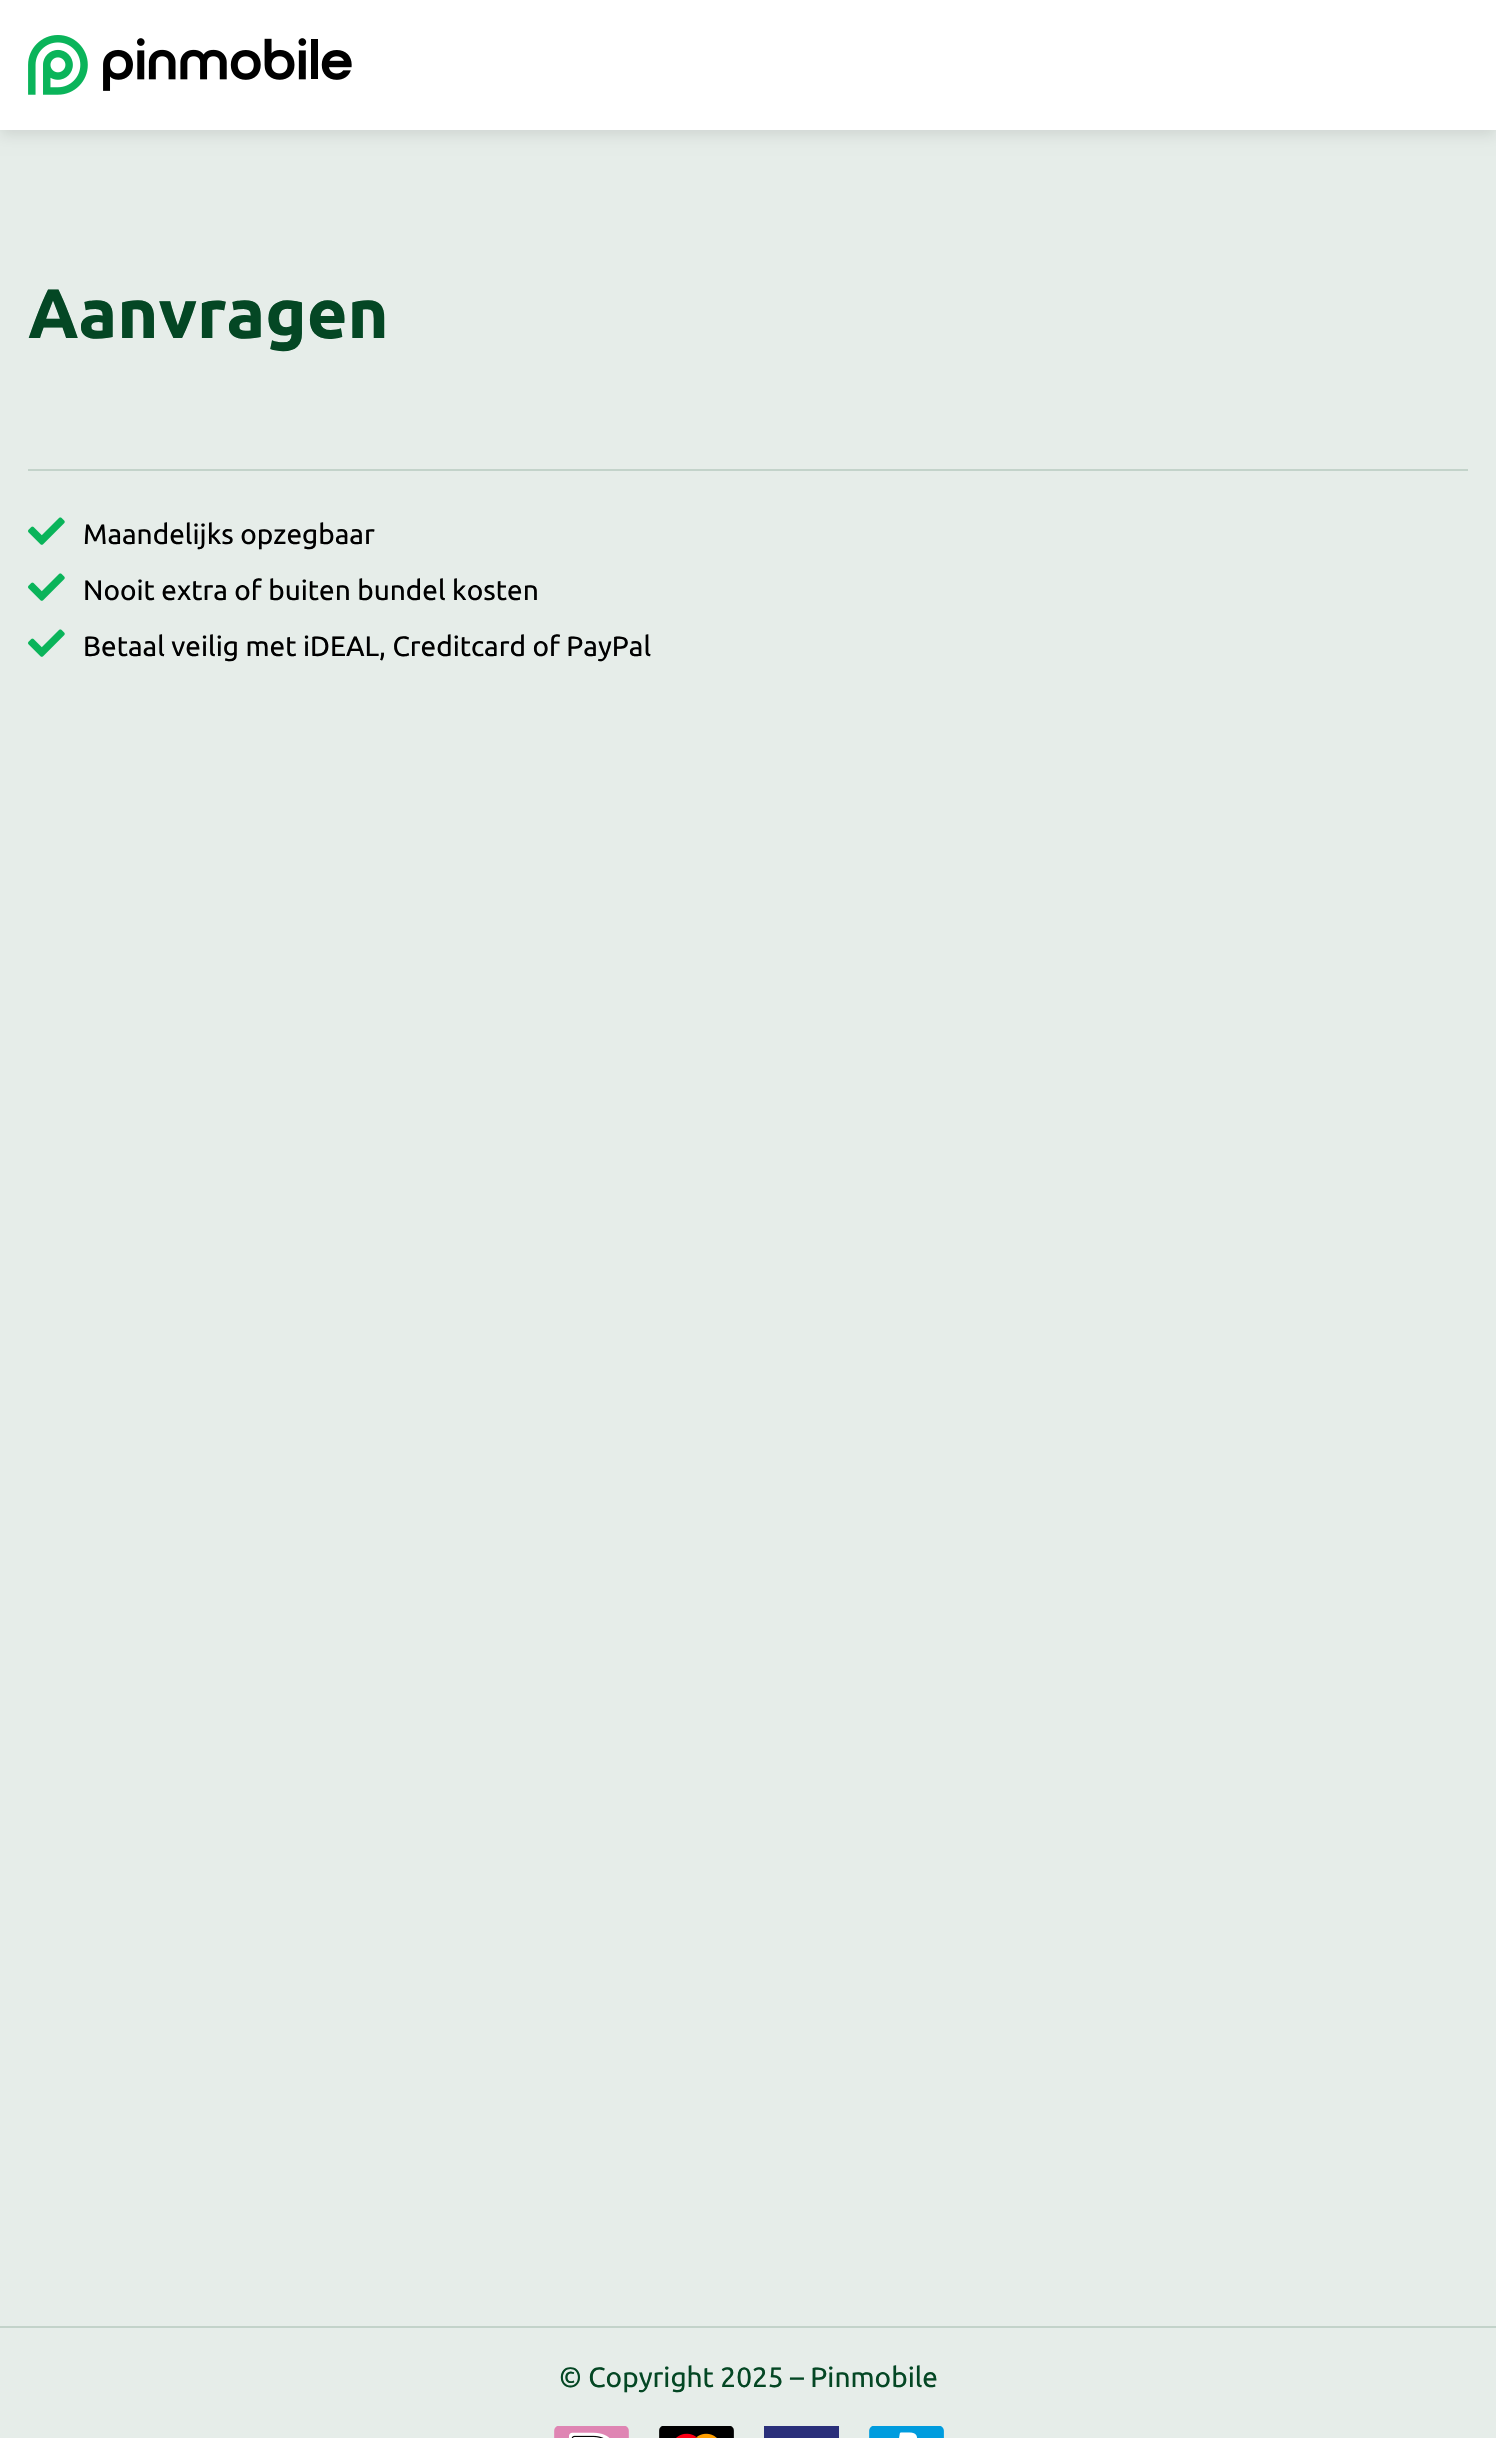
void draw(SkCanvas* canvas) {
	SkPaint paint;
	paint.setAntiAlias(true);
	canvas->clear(0xffe6ede9);
	paint.setColor(0x1a000000);
	paint.setMaskFilter(SkMaskFilter::MakeBlur(kNormal_SkBlurStyle, 7));
	canvas->drawRect(SkRect::MakeXYWH(0, 5, 1496, 130), paint);
	paint.setMaskFilter(nullptr);
	paint.setColor(0xffffffff);
	canvas->drawRect(SkRect::MakeXYWH(0, 0, 1496, 130), paint);
	canvas->drawImageRect(SkImages::DeferredFromEncodedData(SkData::MakeFromFileName("img1.png")), SkRect::MakeXYWH(28, 35, 324, 60), SkSamplingOptions());
	SkFont f1(fontMgr->matchFamilyStyle("Ubuntu", SkFontStyle::Bold()), 70);
	f1.setSubpixel(true);
	paint.setColor(0xff044724);
	canvas->drawString("Aanvragen", 28, 338, f1, paint);
	paint.setColor(0xffc3d3ca);
	canvas->drawRect(SkRect::MakeXYWH(28, 469, 1440, 2), paint);
	canvas->drawImageRect(SkImages::DeferredFromEncodedData(SkData::MakeFromFileName("img2.png")), SkRect::MakeXYWH(28, 517, 37, 28), SkSamplingOptions());
	SkFont f2(fontMgr->matchFamilyStyle("Ubuntu", SkFontStyle::Normal()), 28);
	f2.setSubpixel(true);
	paint.setColor(0xff000000);
	canvas->drawString("Maandelijks opzegbaar", 83, 544, f2, paint);
	canvas->drawImageRect(SkImages::DeferredFromEncodedData(SkData::MakeFromFileName("img2.png")), SkRect::MakeXYWH(28, 573, 37, 28), SkSamplingOptions());
	canvas->drawString("Nooit extra of buiten bundel kosten", 83, 600, f2, paint);
	canvas->drawImageRect(SkImages::DeferredFromEncodedData(SkData::MakeFromFileName("img2.png")), SkRect::MakeXYWH(28, 629, 37, 28), SkSamplingOptions());
	canvas->drawString("Betaal veilig met iDEAL, Creditcard of PayPal", 83, 656, f2, paint);
	paint.setColor(0xffc3d3ca);
	canvas->drawRect(SkRect::MakeXYWH(0, 2326, 1496, 2), paint);
	paint.setColor(0xff044724);
	canvas->drawString("© Copyright 2025 – Pinmobile", 559, 2387, f2, paint);
	canvas->drawImageRect(SkImages::DeferredFromEncodedData(SkData::MakeFromFileName("img3.png")), SkRect::MakeXYWH(554, 2426, 75, 12), SkSamplingOptions());
	canvas->drawImageRect(SkImages::DeferredFromEncodedData(SkData::MakeFromFileName("img4.png")), SkRect::MakeXYWH(659, 2426, 75, 12), SkSamplingOptions());
	paint.setColor(0xff2a2f7a);
	canvas->drawRect(SkRect::MakeXYWH(764, 2426, 75, 12), paint);
	canvas->drawImageRect(SkImages::DeferredFromEncodedData(SkData::MakeFromFileName("img5.png")), SkRect::MakeXYWH(869, 2426, 75, 12), SkSamplingOptions());
}
